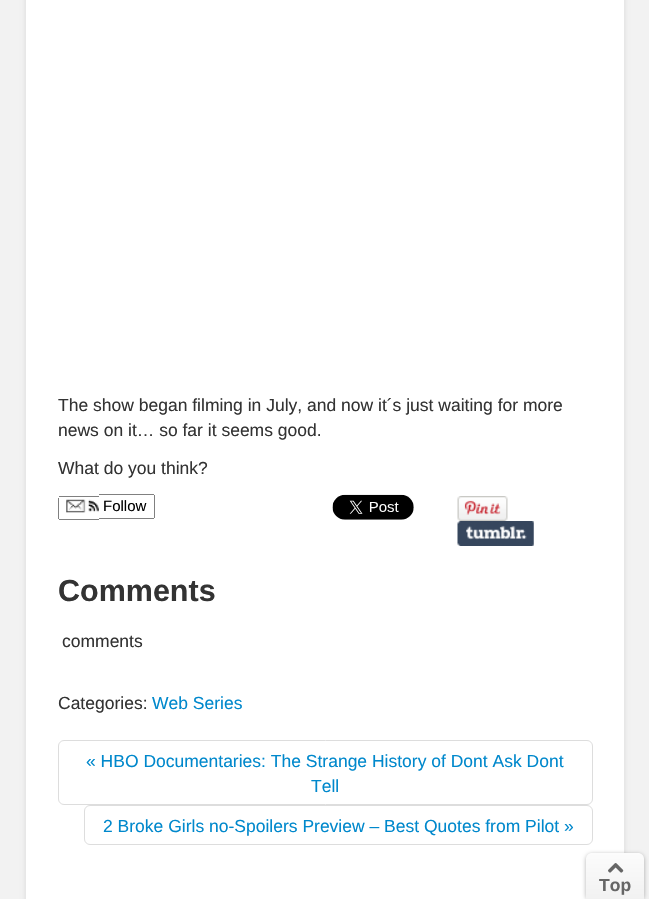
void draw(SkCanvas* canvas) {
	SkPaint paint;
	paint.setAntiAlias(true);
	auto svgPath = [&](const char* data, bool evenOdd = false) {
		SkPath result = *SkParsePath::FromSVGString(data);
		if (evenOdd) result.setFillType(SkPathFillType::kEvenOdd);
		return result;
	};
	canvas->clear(0xfff2f2f2);
	paint.setColor(0x14000000);
	paint.setMaskFilter(SkMaskFilter::MakeBlur(kNormal_SkBlurStyle, 2));
	canvas->drawRect(SkRect::MakeXYWH(25, -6, 600, 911), paint);
	paint.setMaskFilter(nullptr);
	paint.setColor(0xffffffff);
	canvas->drawRect(SkRect::MakeXYWH(26, 0, 598, 899), paint);
	SkFont f1(fontMgr->matchFamilyStyle("Liberation Sans", SkFontStyle::Normal()), 17.5);
	f1.setSubpixel(true);
	paint.setColor(0xff333333);
	canvas->drawString("The show began filming in July, and now it´s just waiting for more", 58, 411, f1, paint);
	canvas->drawString("news on it… so far it seems good.", 58, 436, f1, paint);
	canvas->drawString("What do you think?", 58, 474, f1, paint);
	canvas->drawImageRect(SkImages::DeferredFromEncodedData(SkData::MakeFromFileName("img1.png")), SkRect::MakeXYWH(66, 499, 33, 14), SkSamplingOptions());
	SkFont f2(fontMgr->matchFamilyStyle("Liberation Sans", SkFontStyle::Normal()), 15);
	f2.setSubpixel(true);
	paint.setColor(0xff000000);
	canvas->drawString("Follow", 103, 511, f2, paint);
	paint.setColor(0xff808080);
	canvas->drawRect(SkRect::MakeXYWH(59, 496, 40, 1), paint);
	canvas->drawRect(SkRect::MakeXYWH(59, 519, 40, 1), paint);
	canvas->drawRect(SkRect::MakeXYWH(58, 498, 1, 21), paint);
	canvas->drawRect(SkRect::MakeXYWH(99, 494, 55, 1), paint);
	canvas->drawRect(SkRect::MakeXYWH(154, 495, 1, 23), paint);
	canvas->drawRect(SkRect::MakeXYWH(99, 518, 55, 1), paint);
	canvas->drawImageRect(SkImages::DeferredFromEncodedData(SkData::MakeFromFileName("img2.png")), SkRect::MakeXYWH(332, 494, 82, 26), SkSamplingOptions());
	canvas->drawImageRect(SkImages::DeferredFromEncodedData(SkData::MakeFromFileName("img3.png")), SkRect::MakeXYWH(457, 496, 51, 25), SkSamplingOptions());
	canvas->drawImageRect(SkImages::DeferredFromEncodedData(SkData::MakeFromFileName("img4.png")), SkRect::MakeXYWH(457, 521, 77, 25), SkSamplingOptions());
	SkFont f3(fontMgr->matchFamilyStyle("Liberation Sans", SkFontStyle::Bold()), 30.5);
	f3.setSubpixel(true);
	paint.setColor(0xff333333);
	canvas->drawString("Comments", 58, 601, f3, paint);
	canvas->drawString("comments", 62, 647, f1, paint);
	canvas->drawString("Categories:", 58, 709, f1, paint);
	paint.setColor(0xff0088cc);
	canvas->drawString("Web Series", 152, 709, f1, paint);
	paint.setStroke(true);
	paint.setStrokeWidth(1);
	paint.setColor(0xffdddddd);
	canvas->drawRoundRect(SkRect::MakeXYWH(58.5, 740.5, 534, 64), 5.5, 5.5, paint);
	paint.setStroke(false);
	paint.setColor(0xff0088cc);
	canvas->drawString("« HBO Documentaries: The Strange History of Dont Ask Dont", 86, 767, f1, paint);
	canvas->drawString("Tell", 311, 792, f1, paint);
	paint.setStroke(true);
	paint.setColor(0xffdddddd);
	canvas->drawRoundRect(SkRect::MakeXYWH(84.5, 805.5, 508, 39), 5.5, 5.5, paint);
	paint.setStroke(false);
	paint.setColor(0xff0088cc);
	canvas->drawString("2 Broke Girls no-Spoilers Preview – Best Quotes from Pilot »", 103, 832, f1, paint);
	paint.setColor(0x4d000000);
	paint.setMaskFilter(SkMaskFilter::MakeBlur(kNormal_SkBlurStyle, 2));
	canvas->drawRoundRect(SkRect::MakeXYWH(586, 854, 58, 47), 6, 6, paint);
	paint.setMaskFilter(nullptr);
	{
		const SkColor colors[] = {0xfffcfcfc, 0xfff1f1f1};
		const float stops[] = {0, 1};
		const SkPoint ends[] = {{615, 853}, {615, 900}};
		paint.setShader(SkGradientShader::MakeLinear(ends, colors, stops, 2, SkTileMode::kClamp));
		paint.setAlpha(255);
	}
	canvas->drawPath(svgPath("M592 853H638C641.5 853 644 855.5 644 859V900H586V859C586 855.5 588.5 853 592 853Z"), paint);
	canvas->drawImageRect(SkImages::DeferredFromEncodedData(SkData::MakeFromFileName("img5.png")), SkRect::MakeXYWH(608, 863, 16, 10), SkSamplingOptions());
	SkFont f4(fontMgr->matchFamilyStyle("Liberation Sans", SkFontStyle::Bold()), 17.5);
	f4.setSubpixel(true);
	paint.setShader(nullptr);
	paint.setColor(0xff666666);
	canvas->drawString("Top", 599, 891, f4, paint);
}
